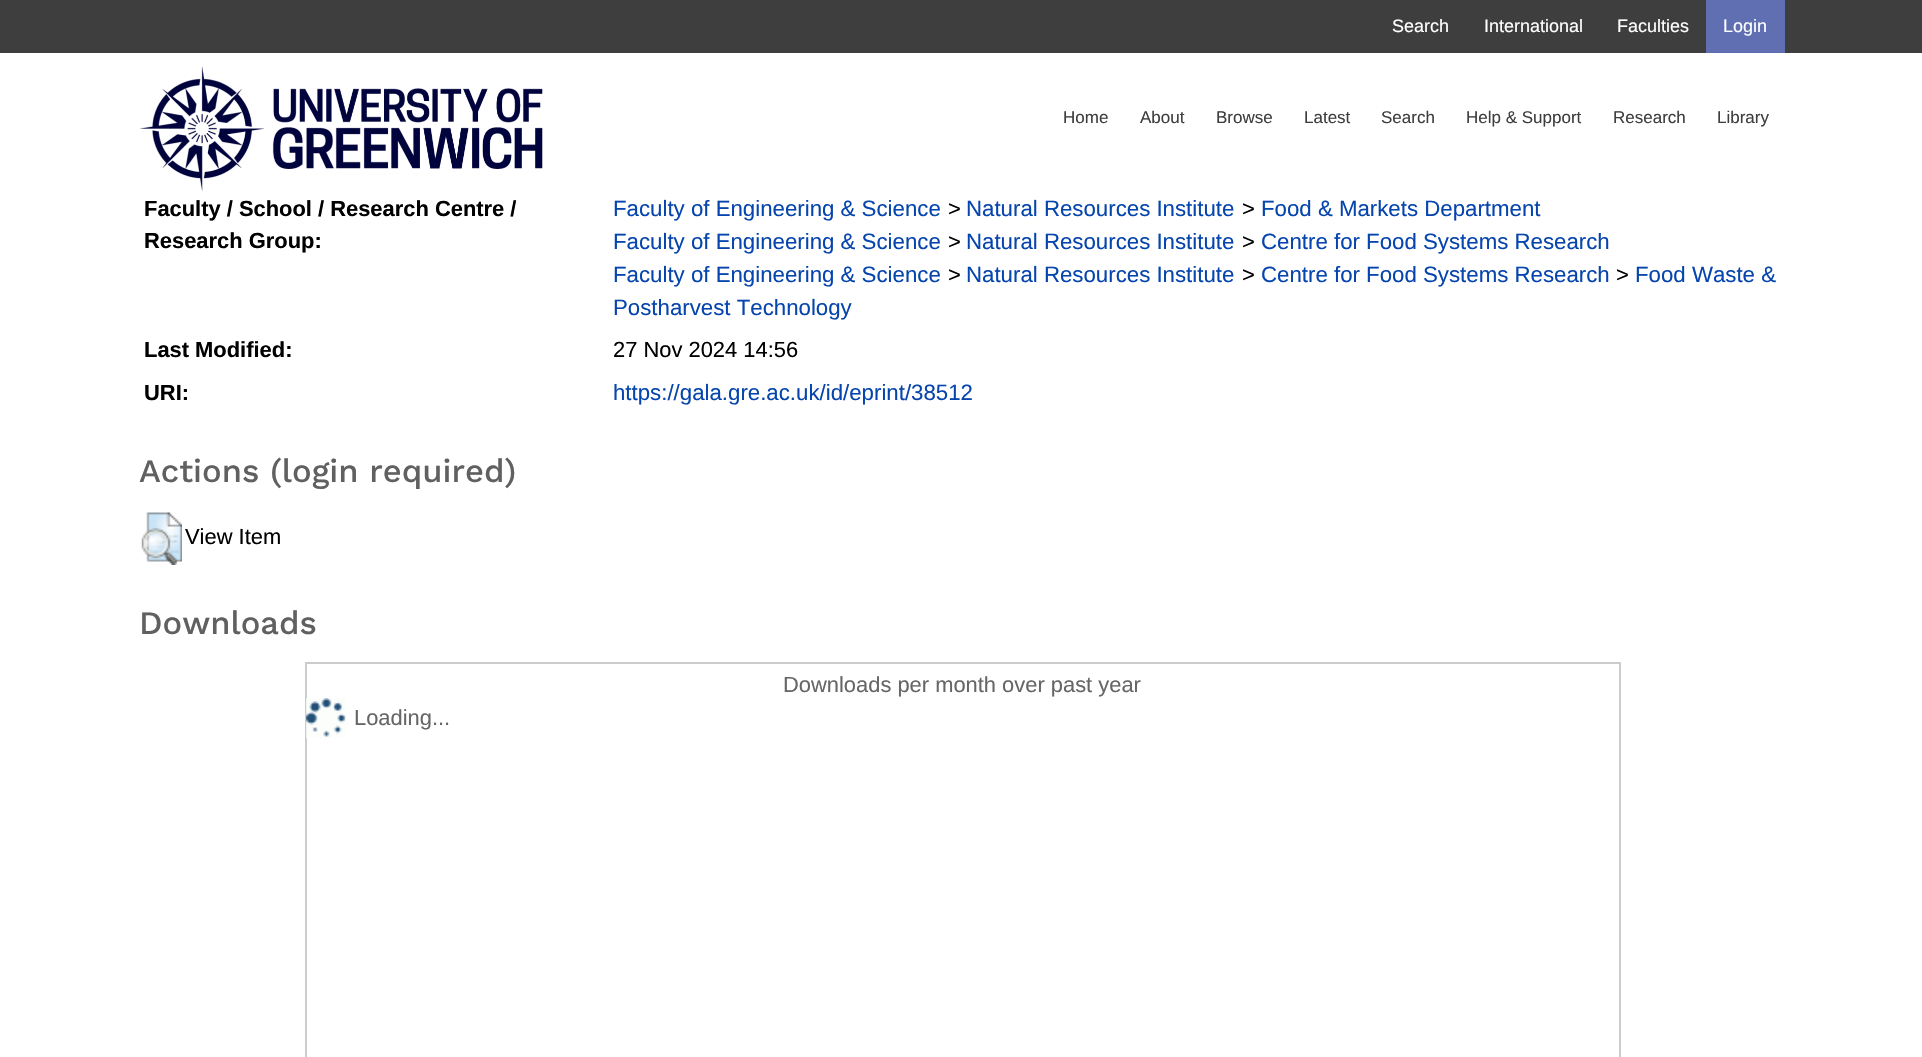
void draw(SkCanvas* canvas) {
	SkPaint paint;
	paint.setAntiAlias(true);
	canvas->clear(0xffffffff);
	paint.setColor(0xff3e3e3e);
	canvas->drawRect(SkRect::MakeXYWH(0, 0, 1922, 53), paint);
	SkFont f1(fontMgr->matchFamilyStyle("Liberation Sans", SkFontStyle::Normal()), 18);
	f1.setSubpixel(true);
	paint.setColor(0xffffffff);
	canvas->drawString("Search", 1392, 32, f1, paint);
	canvas->drawString("International", 1484, 32, f1, paint);
	canvas->drawString("Faculties", 1617, 32, f1, paint);
	paint.setColor(0xff606eb2);
	canvas->drawRect(SkRect::MakeXYWH(1706, 0, 79, 53), paint);
	paint.setColor(0xffffffff);
	canvas->drawString("Login", 1723, 32, f1, paint);
	canvas->drawImageRect(SkImages::DeferredFromEncodedData(SkData::MakeFromFileName("img1.png")), SkRect::MakeXYWH(140, 66, 403, 125), SkSamplingOptions());
	SkFont f2(fontMgr->matchFamilyStyle("Liberation Sans", SkFontStyle::Normal()), 17);
	f2.setSubpixel(true);
	paint.setColor(0xff3e3e3e);
	canvas->drawString("Home", 1063, 123, f2, paint);
	canvas->drawString("About", 1140, 123, f2, paint);
	canvas->drawString("Browse", 1216, 123, f2, paint);
	canvas->drawString("Latest", 1304, 123, f2, paint);
	canvas->drawString("Search", 1381, 123, f2, paint);
	canvas->drawString("Help & Support", 1466, 123, f2, paint);
	canvas->drawString("Research", 1613, 123, f2, paint);
	canvas->drawString("Library", 1717, 123, f2, paint);
	SkFont f3(fontMgr->matchFamilyStyle("Liberation Sans", SkFontStyle::Bold()), 21.9);
	f3.setSubpixel(true);
	paint.setColor(0xff000000);
	canvas->drawString("Faculty / School / Research Centre /", 144, 216, f3, paint);
	canvas->drawString("Research Group:", 144, 248, f3, paint);
	SkFont f4(fontMgr->matchFamilyStyle("Liberation Sans", SkFontStyle::Normal()), 22.25);
	f4.setSubpixel(true);
	paint.setColor(0xff0645ad);
	canvas->drawString("Faculty of Engineering & Science", 613, 216, f4, paint);
	SkFont f5(fontMgr->matchFamilyStyle("Liberation Sans", SkFontStyle::Normal()), 21.9);
	f5.setSubpixel(true);
	paint.setColor(0xff000000);
	canvas->drawString(">", 948, 216, f5, paint);
	paint.setColor(0xff0645ad);
	canvas->drawString("Natural Resources Institute", 966, 216, f4, paint);
	paint.setColor(0xff000000);
	canvas->drawString(">", 1242, 216, f5, paint);
	paint.setColor(0xff0645ad);
	canvas->drawString("Food & Markets Department", 1261, 216, f4, paint);
	canvas->drawString("Faculty of Engineering & Science", 613, 249, f4, paint);
	paint.setColor(0xff000000);
	canvas->drawString(">", 948, 249, f5, paint);
	paint.setColor(0xff0645ad);
	canvas->drawString("Natural Resources Institute", 966, 249, f4, paint);
	paint.setColor(0xff000000);
	canvas->drawString(">", 1242, 249, f5, paint);
	paint.setColor(0xff0645ad);
	canvas->drawString("Centre for Food Systems Research", 1261, 249, f4, paint);
	canvas->drawString("Faculty of Engineering & Science", 613, 282, f4, paint);
	paint.setColor(0xff000000);
	canvas->drawString(">", 948, 282, f5, paint);
	paint.setColor(0xff0645ad);
	canvas->drawString("Natural Resources Institute", 966, 282, f4, paint);
	paint.setColor(0xff000000);
	canvas->drawString(">", 1242, 282, f5, paint);
	paint.setColor(0xff0645ad);
	canvas->drawString("Centre for Food Systems Research", 1261, 282, f4, paint);
	paint.setColor(0xff000000);
	canvas->drawString(">", 1616, 282, f5, paint);
	paint.setColor(0xff0645ad);
	canvas->drawString("Food Waste &", 1635, 282, f4, paint);
	canvas->drawString("Postharvest Technology", 613, 315, f4, paint);
	paint.setColor(0xff000000);
	canvas->drawString("Last Modified:", 144, 357, f3, paint);
	canvas->drawString("27 Nov 2024 14:56", 613, 357, f5, paint);
	canvas->drawString("URI:", 144, 400, f3, paint);
	paint.setColor(0xff0645ad);
	canvas->drawString("https://gala.gre.ac.uk/id/eprint/38512", 613, 400, f4, paint);
	SkFont f6(fontMgr->matchFamilyStyle("Work Sans", SkFontStyle(500, SkFontStyle::kNormal_Width, SkFontStyle::kUpright_Slant)), 32.75);
	f6.setSubpixel(true);
	paint.setColor(0xff606060);
	canvas->drawString("Actions (login required)", 139, 482, f6, paint);
	canvas->drawImageRect(SkImages::DeferredFromEncodedData(SkData::MakeFromFileName("img2.png")), SkRect::MakeXYWH(141, 512, 41, 53), SkSamplingOptions());
	paint.setColor(0xff000000);
	canvas->drawString("View Item", 185, 544, f5, paint);
	paint.setColor(0xff606060);
	canvas->drawString("Downloads", 139, 634, f6, paint);
	paint.setStroke(true);
	paint.setStrokeWidth(2);
	paint.setColor(0xffcccccc);
	canvas->drawRect(SkRect::MakeXYWH(306, 663, 1314, 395), paint);
	paint.setStroke(false);
	paint.setColor(0xff666666);
	canvas->drawString("Downloads per month over past year", 783, 692, f5, paint);
	canvas->drawImageRect(SkImages::DeferredFromEncodedData(SkData::MakeFromFileName("img3.png")), SkRect::MakeXYWH(306, 698, 40, 41), SkSamplingOptions());
	canvas->drawString("Loading...", 354, 725, f5, paint);
}
